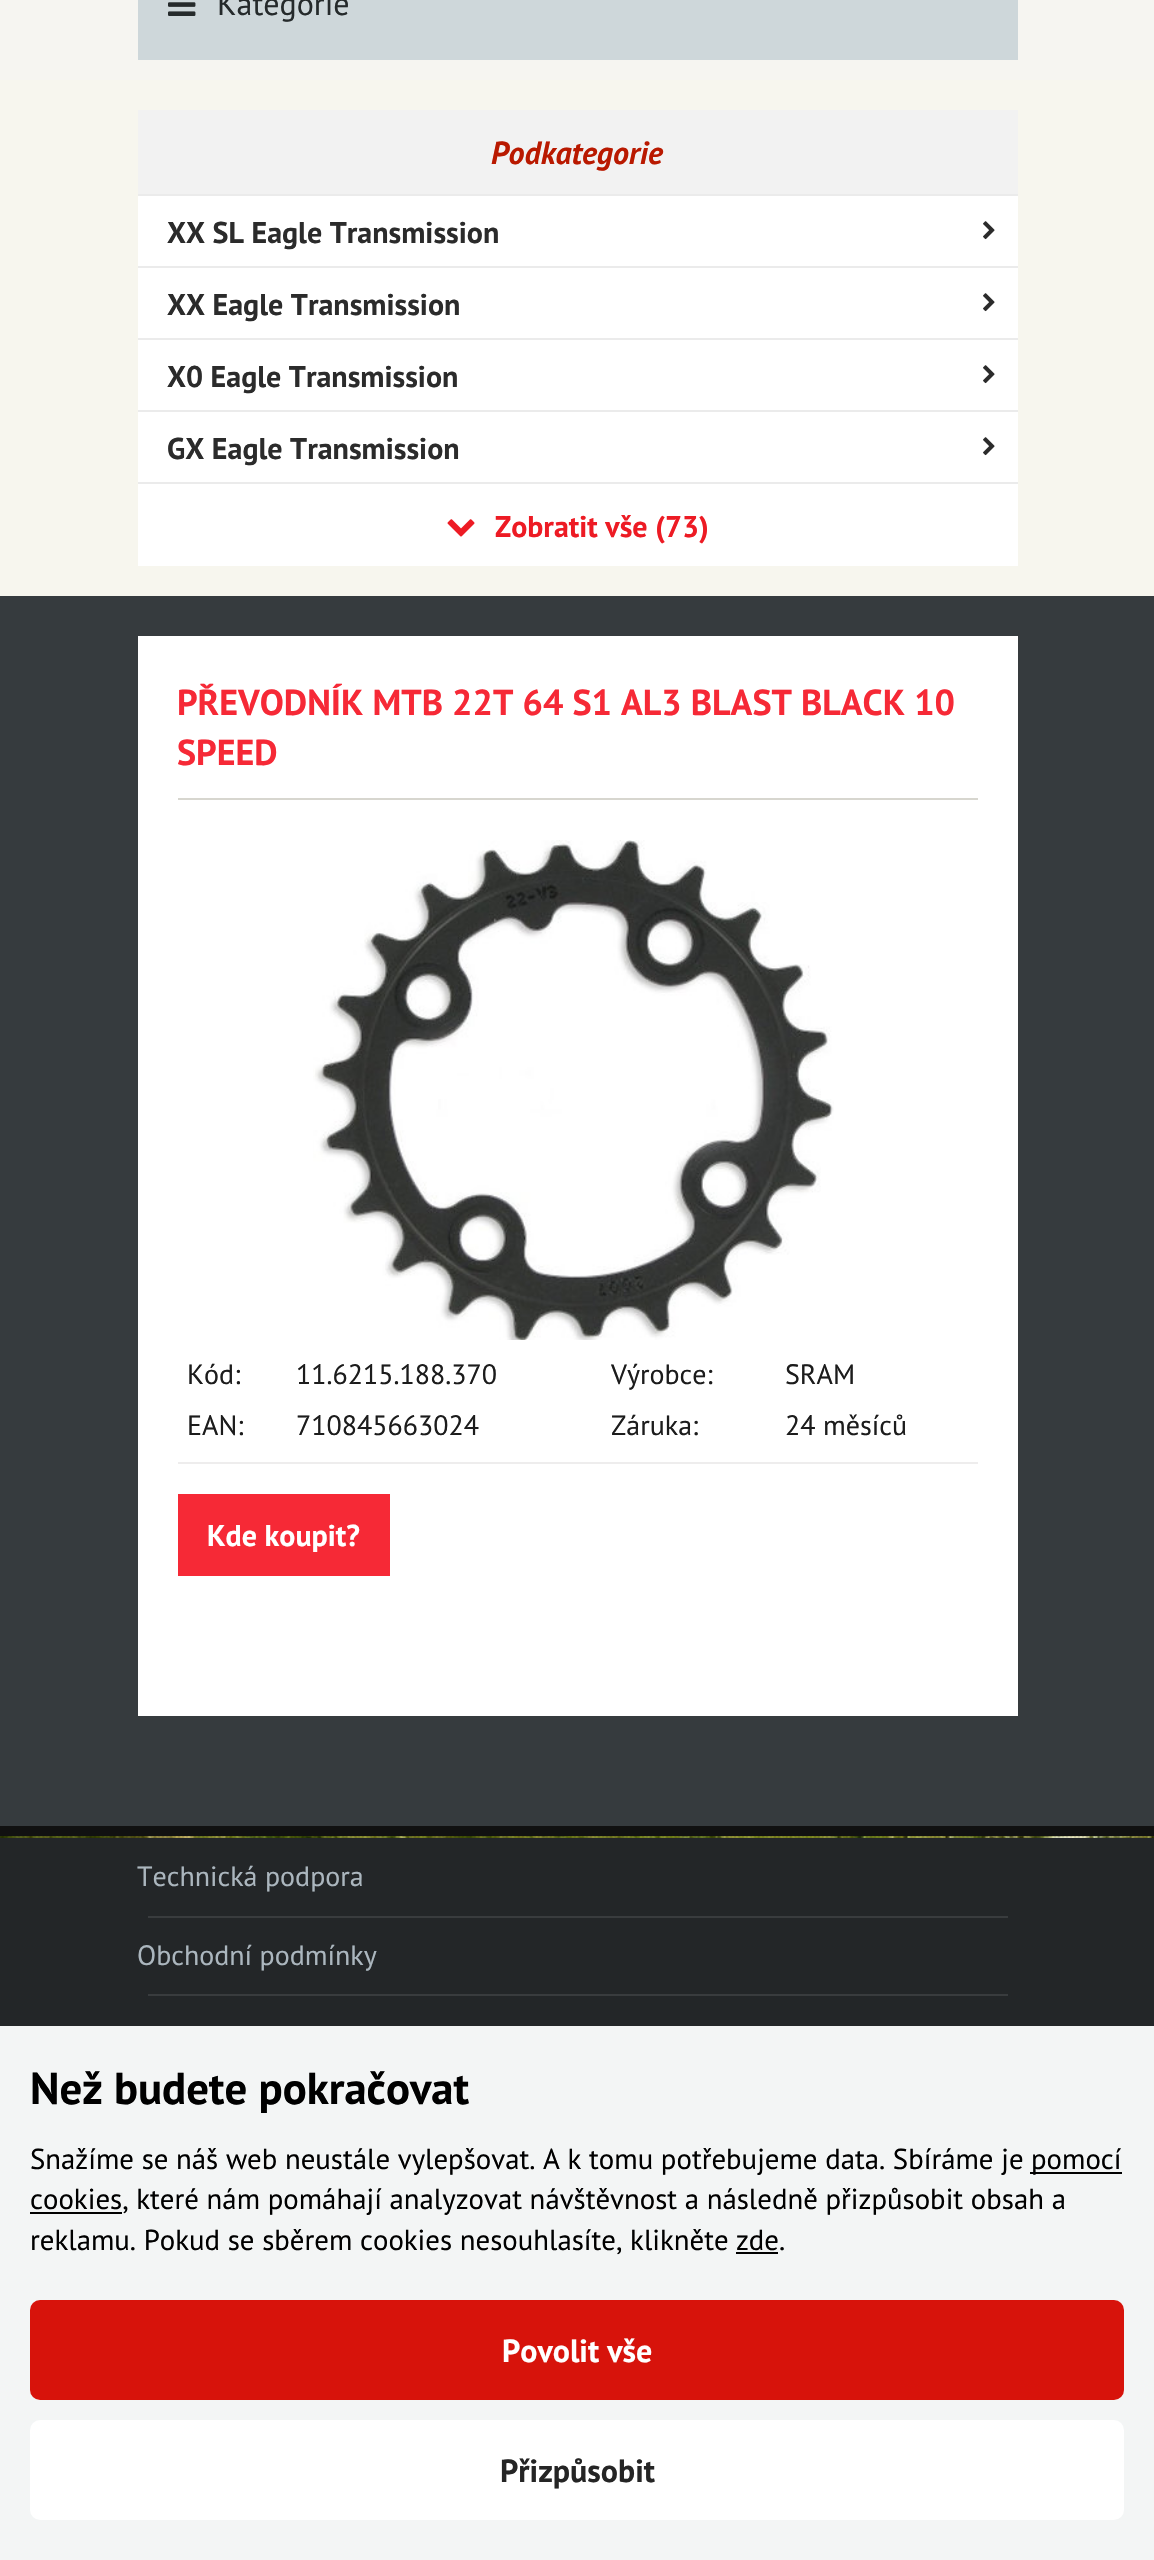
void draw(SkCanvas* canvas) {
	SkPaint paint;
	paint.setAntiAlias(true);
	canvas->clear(0xfff6f5f1);
	paint.setColor(0xffced7da);
	canvas->drawRect(SkRect::MakeXYWH(138, 0, 880, 60), paint);
	canvas->drawImageRect(SkImages::DeferredFromEncodedData(SkData::MakeFromFileName("img1.png")), SkRect::MakeXYWH(168, 2, 28, 14), SkSamplingOptions());
	SkFont f1(fontMgr->matchFamilyStyle("PT Sans", SkFontStyle::Normal()), 32);
	f1.setSubpixel(true);
	paint.setColor(0xff252a2b);
	canvas->drawString("Kategorie", 217, 15, f1, paint);
	paint.setColor(0xfff7f6ee);
	canvas->drawRect(SkRect::MakeXYWH(0, 80, 1154, 516), paint);
	paint.setColor(0xfff2f2f2);
	canvas->drawRect(SkRect::MakeXYWH(138, 110, 880, 84), paint);
	paint.setColor(0xffebebeb);
	canvas->drawRect(SkRect::MakeXYWH(138, 194, 880, 2), paint);
	SkFont f2(fontMgr->matchFamilyStyle("PT Sans", SkFontStyle::BoldItalic()), 32);
	f2.setSubpixel(true);
	paint.setColor(0xffb91900);
	canvas->drawString("Podkategorie", 491, 164, f2, paint);
	paint.setColor(0xffffffff);
	canvas->drawRect(SkRect::MakeXYWH(138, 196, 880, 286), paint);
	paint.setColor(0xffebebeb);
	canvas->drawRect(SkRect::MakeXYWH(138, 266, 880, 2), paint);
	SkFont f3(fontMgr->matchFamilyStyle("PT Sans", SkFontStyle::Bold()), 30);
	f3.setSubpixel(true);
	paint.setColor(0xff2b2b2b);
	canvas->drawString("XX SL Eagle Transmission", 167, 243, f3, paint);
	canvas->drawImageRect(SkImages::DeferredFromEncodedData(SkData::MakeFromFileName("img2.png")), SkRect::MakeXYWH(983, 221, 12, 19), SkSamplingOptions());
	paint.setColor(0xffebebeb);
	canvas->drawRect(SkRect::MakeXYWH(138, 338, 880, 2), paint);
	paint.setColor(0xff2b2b2b);
	canvas->drawString("XX Eagle Transmission", 167, 315, f3, paint);
	canvas->drawImageRect(SkImages::DeferredFromEncodedData(SkData::MakeFromFileName("img2.png")), SkRect::MakeXYWH(983, 293, 12, 19), SkSamplingOptions());
	paint.setColor(0xffebebeb);
	canvas->drawRect(SkRect::MakeXYWH(138, 410, 880, 2), paint);
	paint.setColor(0xff2b2b2b);
	canvas->drawString("X0 Eagle Transmission", 167, 387, f3, paint);
	canvas->drawImageRect(SkImages::DeferredFromEncodedData(SkData::MakeFromFileName("img2.png")), SkRect::MakeXYWH(983, 365, 12, 19), SkSamplingOptions());
	paint.setColor(0xffebebeb);
	canvas->drawRect(SkRect::MakeXYWH(138, 482, 880, 2), paint);
	paint.setColor(0xff2b2b2b);
	canvas->drawString("GX Eagle Transmission", 167, 459, f3, paint);
	canvas->drawImageRect(SkImages::DeferredFromEncodedData(SkData::MakeFromFileName("img2.png")), SkRect::MakeXYWH(983, 437, 12, 19), SkSamplingOptions());
	paint.setColor(0xffffffff);
	canvas->drawRect(SkRect::MakeXYWH(138, 484, 880, 82), paint);
	canvas->drawImageRect(SkImages::DeferredFromEncodedData(SkData::MakeFromFileName("img3.png")), SkRect::MakeXYWH(447, 519, 28, 18), SkSamplingOptions());
	paint.setColor(0xffed1b24);
	canvas->drawString("Zobratit vše (73)", 495, 537, f3, paint);
	paint.setColor(0xff363b3e);
	canvas->drawRect(SkRect::MakeXYWH(0, 596, 1154, 1230), paint);
	paint.setColor(0xff111111);
	canvas->drawRect(SkRect::MakeXYWH(0, 1826, 1154, 10), paint);
	paint.setColor(0xffffffff);
	canvas->drawRect(SkRect::MakeXYWH(138, 636, 880, 1080), paint);
	paint.setColor(0xffd7d6cf);
	canvas->drawRect(SkRect::MakeXYWH(178, 798, 800, 2), paint);
	SkFont f4(fontMgr->matchFamilyStyle("PT Sans", SkFontStyle::Bold()), 36);
	f4.setSubpixel(true);
	paint.setColor(0xfff62936);
	canvas->drawString("PŘEVODNÍK MTB 22T 64 S1 AL3 BLAST BLACK 10", 177, 715, f4, paint);
	canvas->drawString("SPEED", 177, 765, f4, paint);
	canvas->drawImageRect(SkImages::DeferredFromEncodedData(SkData::MakeFromFileName("img4.png")), SkRect::MakeXYWH(313, 840, 521, 500), SkSamplingOptions());
	paint.setColor(0xffeeeded);
	canvas->drawRect(SkRect::MakeXYWH(178, 1462, 800, 2), paint);
	SkFont f5(fontMgr->matchFamilyStyle("PT Sans", SkFontStyle::Normal()), 28);
	f5.setSubpixel(true);
	paint.setColor(0xff1c1c1c);
	canvas->drawString("Kód:", 187, 1384, f5, paint);
	canvas->drawString("11.6215.188.370", 296, 1384, f5, paint);
	canvas->drawString("Výrobce:", 611, 1384, f5, paint);
	canvas->drawString("SRAM", 785, 1384, f5, paint);
	canvas->drawString("EAN:", 187, 1435, f5, paint);
	canvas->drawString("710845663024", 296, 1435, f5, paint);
	canvas->drawString("Záruka:", 611, 1435, f5, paint);
	canvas->drawString("24 měsíců", 785, 1435, f5, paint);
	paint.setColor(0xfff62936);
	canvas->drawRect(SkRect::MakeXYWH(178, 1494, 212, 82), paint);
	paint.setColor(0xffffffff);
	canvas->drawString("Kde koupit?", 207, 1546, f3, paint);
	canvas->drawImageRect(SkImages::DeferredFromEncodedData(SkData::MakeFromFileName("img5.png")), SkRect::MakeXYWH(0, 1836, 1154, 2), SkSamplingOptions());
	paint.setColor(0xff232628);
	canvas->drawRect(SkRect::MakeXYWH(0, 1838, 1154, 188), paint);
	paint.setColor(0xffabb6be);
	canvas->drawString("Technická podpora", 137, 1886, f5, paint);
	paint.setColor(0xff393c3e);
	canvas->drawRect(SkRect::MakeXYWH(148, 1916, 860, 2), paint);
	paint.setColor(0xffabb6be);
	canvas->drawString("Obchodní podmínky", 137, 1965, f5, paint);
	paint.setColor(0xff393c3e);
	canvas->drawRect(SkRect::MakeXYWH(148, 1994, 860, 2), paint);
	paint.setColor(0xfff3f5f5);
	canvas->drawRect(SkRect::MakeXYWH(0, 2026, 1154, 534), paint);
	SkFont f6(fontMgr->matchFamilyStyle("PT Sans", SkFontStyle::Bold()), 44.75);
	f6.setSubpixel(true);
	paint.setColor(0xff000000);
	canvas->drawString("Než budete pokračovat", 30, 2104, f6, paint);
	SkFont f7(fontMgr->matchFamilyStyle("PT Sans", SkFontStyle::Normal()), 28.8);
	f7.setSubpixel(true);
	canvas->drawString("Snažíme se náš web neustále vylepšovat. A k tomu potřebujeme data. Sbíráme je", 30, 2169, f7, paint);
	canvas->drawRect(SkRect::MakeXYWH(1030, 2172, 92, 2), paint);
	canvas->drawString("pomocí", 1031, 2169, f7, paint);
	canvas->drawRect(SkRect::MakeXYWH(30, 2212, 92, 2), paint);
	canvas->drawString("cookies, které nám pomáhají analyzovat návštěvnost a následně přizpůsobit obsah a", 30, 2209, f7, paint);
	canvas->drawString("reklamu. Pokud se sběrem cookies nesouhlasíte, klikněte", 30, 2250, f7, paint);
	canvas->drawString("zde.", 736, 2250, f7, paint);
	canvas->drawRect(SkRect::MakeXYWH(736, 2252, 42, 2), paint);
	paint.setColor(0xffd7130b);
	canvas->drawRoundRect(SkRect::MakeXYWH(30, 2300, 1094, 100), 10, 10, paint);
	SkFont f8(fontMgr->matchFamilyStyle("PT Sans", SkFontStyle::Bold()), 32);
	f8.setSubpixel(true);
	paint.setColor(0xffffffff);
	canvas->drawString("Povolit vše", 502, 2362, f8, paint);
	canvas->drawRoundRect(SkRect::MakeXYWH(30, 2420, 1094, 100), 10, 10, paint);
	paint.setColor(0xff252525);
	canvas->drawString("Přizpůsobit", 500, 2482, f8, paint);
}
